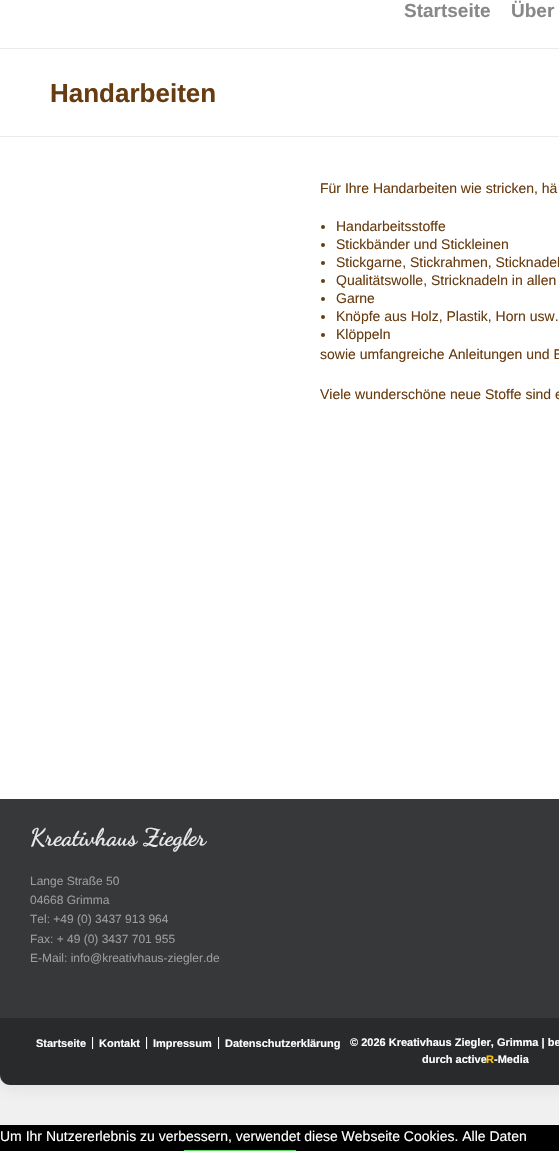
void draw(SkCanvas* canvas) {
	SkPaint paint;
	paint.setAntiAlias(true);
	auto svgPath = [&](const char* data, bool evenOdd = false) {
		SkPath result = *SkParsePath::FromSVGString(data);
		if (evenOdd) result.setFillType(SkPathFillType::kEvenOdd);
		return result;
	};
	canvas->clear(0xfff0f0f0);
	paint.setColor(0x1a1a1a1a);
	paint.setMaskFilter(SkMaskFilter::MakeBlur(kNormal_SkBlurStyle, 9.5));
	canvas->drawRoundRect(SkRect::MakeXYWH(0, -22, 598, 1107), 10, 10, paint);
	paint.setMaskFilter(nullptr);
	paint.setColor(0xffffffff);
	canvas->drawRoundRect(SkRect::MakeXYWH(0, -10, 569, 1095), 10, 10, paint);
	paint.setColor(0xffebebeb);
	canvas->drawRect(SkRect::MakeXYWH(0, 48, 559, 1), paint);
	SkFont f1(fontMgr->matchFamilyStyle("Liberation Sans", SkFontStyle::Bold()), 19);
	f1.setSubpixel(true);
	paint.setColor(0xff888888);
	canvas->drawString("Startseite", 404, 17, f1, paint);
	canvas->drawString("Über", 511, 17, f1, paint);
	paint.setColor(0xffebebeb);
	canvas->drawRect(SkRect::MakeXYWH(0, 136, 559, 1), paint);
	SkFont f2(fontMgr->matchFamilyStyle("Liberation Sans", SkFontStyle::Bold()), 26);
	f2.setSubpixel(true);
	paint.setColor(0xff683c11);
	canvas->drawString("Handarbeiten", 50, 102, f2, paint);
	SkFont f3(fontMgr->matchFamilyStyle("Liberation Sans", SkFontStyle::Normal()), 14);
	f3.setSubpixel(true);
	canvas->drawString("Für Ihre Handarbeiten wie stricken, hä", 320, 193, f3, paint);
	canvas->drawCircle(323, 227, 2, paint);
	canvas->drawString("Handarbeitsstoffe", 336, 231, f3, paint);
	canvas->drawCircle(323, 245, 2, paint);
	canvas->drawString("Stickbänder und Stickleinen", 336, 249, f3, paint);
	canvas->drawCircle(323, 263, 2, paint);
	canvas->drawString("Stickgarne, Stickrahmen, Sticknadel", 336, 267, f3, paint);
	canvas->drawCircle(323, 281, 2, paint);
	canvas->drawString("Qualitätswolle, Stricknadeln in allen", 336, 285, f3, paint);
	canvas->drawCircle(323, 299, 2, paint);
	canvas->drawString("Garne", 336, 303, f3, paint);
	canvas->drawCircle(323, 317, 2, paint);
	canvas->drawString("Knöpfe aus Holz, Plastik, Horn usw.", 336, 321, f3, paint);
	canvas->drawCircle(323, 335, 2, paint);
	canvas->drawString("Klöppeln", 336, 339, f3, paint);
	canvas->drawString("sowie umfangreiche Anleitungen und B", 320, 359, f3, paint);
	canvas->drawString("Viele wunderschöne neue Stoffe sind e", 320, 399, f3, paint);
	paint.setColor(0xff373839);
	canvas->drawRect(SkRect::MakeXYWH(0, 799, 559, 219), paint);
	SkFont f4(fontMgr->matchFamilyStyle("Dancing Script", SkFontStyle::Bold()), 24);
	f4.setSubpixel(true);
	paint.setColor(0xffeaeaea);
	canvas->drawString("Kreativhaus Ziegler", 30, 845, f4, paint);
	SkFont f5(fontMgr->matchFamilyStyle("Liberation Sans", SkFontStyle::Normal()), 12);
	f5.setSubpixel(true);
	paint.setColor(0xff9c9c9c);
	canvas->drawString("Lange Straße 50", 30, 885, f5, paint);
	canvas->drawString("04668 Grimma", 30, 904, f5, paint);
	canvas->drawString("Tel: +49 (0) 3437 913 964", 30, 923, f5, paint);
	canvas->drawString("Fax: + 49 (0) 3437 701 955", 30, 943, f5, paint);
	canvas->drawString("E-Mail: info@kreativhaus-ziegler.de", 30, 962, f5, paint);
	paint.setColor(0xff282a2b);
	canvas->drawPath(svgPath("M0 1018H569V1075C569 1080.5 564.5 1085 559 1085H10C4.5 1085 0 1080.5 0 1075Z"), paint);
	SkFont f6(fontMgr->matchFamilyStyle("Liberation Sans", SkFontStyle::Bold()), 11);
	f6.setSubpixel(true);
	paint.setColor(0xffffffff);
	canvas->drawString("Startseite", 36, 1047, f6, paint);
	paint.setColor(0xff3a3c3d);
	canvas->drawRect(SkRect::MakeXYWH(93, 1037, 1, 12), paint);
	paint.setColor(0xffffffff);
	canvas->drawRect(SkRect::MakeXYWH(92, 1037, 1, 12), paint);
	canvas->drawString("Kontakt", 99, 1047, f6, paint);
	paint.setColor(0xff3a3c3d);
	canvas->drawRect(SkRect::MakeXYWH(147, 1037, 1, 12), paint);
	paint.setColor(0xffffffff);
	canvas->drawRect(SkRect::MakeXYWH(146, 1037, 1, 12), paint);
	canvas->drawString("Impressum", 153, 1047, f6, paint);
	paint.setColor(0xff3a3c3d);
	canvas->drawRect(SkRect::MakeXYWH(219, 1037, 1, 12), paint);
	paint.setColor(0xffffffff);
	canvas->drawRect(SkRect::MakeXYWH(218, 1037, 1, 12), paint);
	canvas->drawString("Datenschutzerklärung", 225, 1047, f6, paint);
	canvas->drawString("© 2026 Kreativhaus Ziegler, Grimma | be", 350, 1046, f6, paint);
	canvas->drawString("durch active", 422, 1063, f6, paint);
	paint.setColor(0xfffec000);
	canvas->drawString("R", 486, 1063, f6, paint);
	paint.setColor(0xffffffff);
	canvas->drawString("-Media", 494, 1063, f6, paint);
	paint.setColor(0xff000000);
	canvas->drawRect(SkRect::MakeXYWH(0, 1125, 559, 26), paint);
	paint.setColor(0xffffffff);
	canvas->drawString("Um Ihr Nutzererlebnis zu verbessern, verwendet diese Webseite Cookies. Alle Daten", 0, 1141, f3, paint);
	paint.setColor(0xff58d858);
	canvas->drawRect(SkRect::MakeXYWH(184, 1150, 112, 1), paint);
}
